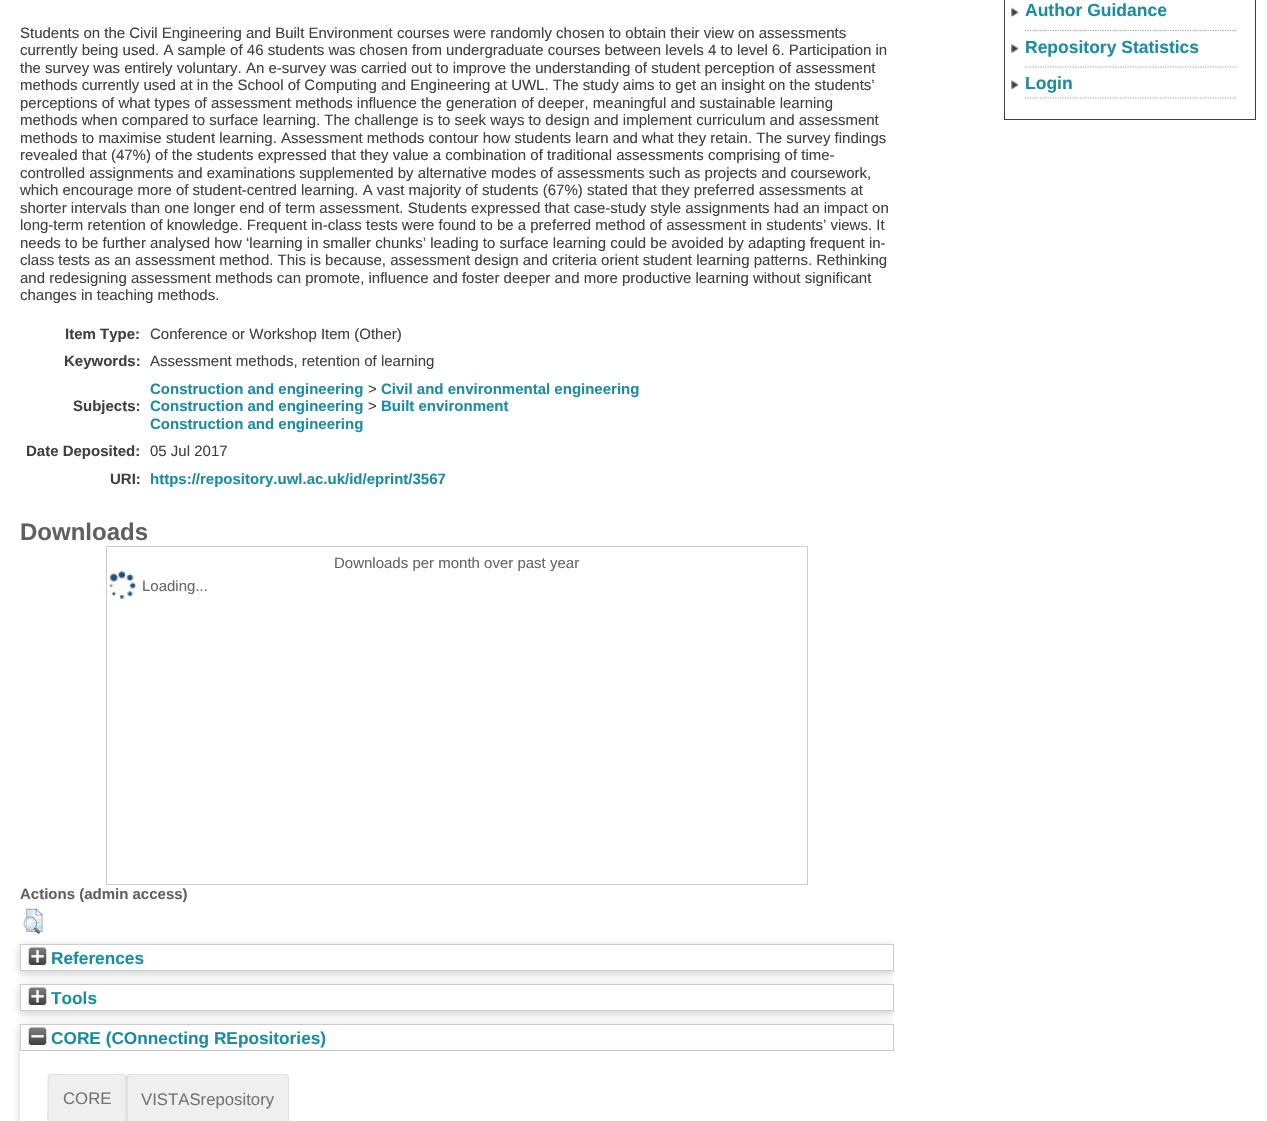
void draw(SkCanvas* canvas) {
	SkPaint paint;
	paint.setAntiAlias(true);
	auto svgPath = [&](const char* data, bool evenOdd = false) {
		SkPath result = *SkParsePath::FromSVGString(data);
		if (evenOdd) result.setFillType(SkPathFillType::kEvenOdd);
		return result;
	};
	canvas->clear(0xffffffff);
	SkFont f1(fontMgr->matchFamilyStyle("Liberation Sans", SkFontStyle::Normal()), 15);
	f1.setSubpixel(true);
	paint.setColor(0xff404041);
	canvas->drawString("Students on the Civil Engineering and Built Environment courses were randomly chosen to obtain their view on assessments", 20, 38, f1, paint);
	canvas->drawString("currently being used. A sample of 46 students was chosen from undergraduate courses between levels 4 to level 6. Participation in", 20, 55, f1, paint);
	canvas->drawString("the survey was entirely voluntary. An e-survey was carried out to improve the understanding of student perception of assessment", 20, 73, f1, paint);
	canvas->drawString("methods currently used at in the School of Computing and Engineering at UWL. The study aims to get an insight on the students’", 20, 90, f1, paint);
	canvas->drawString("perceptions of what types of assessment methods influence the generation of deeper, meaningful and sustainable learning", 20, 108, f1, paint);
	canvas->drawString("methods when compared to surface learning. The challenge is to seek ways to design and implement curriculum and assessment", 20, 125, f1, paint);
	canvas->drawString("methods to maximise student learning. Assessment methods contour how students learn and what they retain. The survey findings", 20, 143, f1, paint);
	canvas->drawString("revealed that (47%) of the students expressed that they value a combination of traditional assessments comprising of time-", 20, 160, f1, paint);
	canvas->drawString("controlled assignments and examinations supplemented by alternative modes of assessments such as projects and coursework,", 20, 178, f1, paint);
	canvas->drawString("which encourage more of student-centred learning. A vast majority of students (67%) stated that they preferred assessments at", 20, 195, f1, paint);
	canvas->drawString("shorter intervals than one longer end of term assessment. Students expressed that case-study style assignments had an impact on", 20, 213, f1, paint);
	canvas->drawString("long-term retention of knowledge. Frequent in-class tests were found to be a preferred method of assessment in students’ views. It", 20, 230, f1, paint);
	canvas->drawString("needs to be further analysed how ‘learning in smaller chunks’ leading to surface learning could be avoided by adapting frequent in-", 20, 248, f1, paint);
	canvas->drawString("class tests as an assessment method. This is because, assessment design and criteria orient student learning patterns. Rethinking", 20, 265, f1, paint);
	canvas->drawString("and redesigning assessment methods can promote, influence and foster deeper and more productive learning without significant", 20, 283, f1, paint);
	canvas->drawString("changes in teaching methods.", 20, 300, f1, paint);
	SkFont f2(fontMgr->matchFamilyStyle("Liberation Sans", SkFontStyle::Bold()), 15);
	f2.setSubpixel(true);
	canvas->drawString("Item Type:", 65, 339, f2, paint);
	canvas->drawString("Conference or Workshop Item (Other)", 150, 339, f1, paint);
	canvas->drawString("Keywords:", 64, 366, f2, paint);
	canvas->drawString("Assessment methods, retention of learning", 150, 366, f1, paint);
	canvas->drawString("Subjects:", 73, 411, f2, paint);
	paint.setColor(0xff1e8ca0);
	canvas->drawString("Construction and engineering", 150, 394, f2, paint);
	paint.setColor(0xff404041);
	canvas->drawString(">", 368, 394, f1, paint);
	paint.setColor(0xff1e8ca0);
	canvas->drawString("Civil and environmental engineering", 381, 394, f2, paint);
	canvas->drawString("Construction and engineering", 150, 411, f2, paint);
	paint.setColor(0xff404041);
	canvas->drawString(">", 368, 411, f1, paint);
	paint.setColor(0xff1e8ca0);
	canvas->drawString("Built environment", 381, 411, f2, paint);
	canvas->drawString("Construction and engineering", 150, 429, f2, paint);
	paint.setColor(0xff404041);
	canvas->drawString("Date Deposited:", 26, 456, f2, paint);
	canvas->drawString("05 Jul 2017", 150, 456, f1, paint);
	canvas->drawString("URI:", 110, 484, f2, paint);
	paint.setColor(0xff1e8ca0);
	canvas->drawString("https://repository.uwl.ac.uk/id/eprint/3567", 150, 484, f2, paint);
	SkFont f3(fontMgr->matchFamilyStyle("Liberation Sans", SkFontStyle::Bold()), 24);
	f3.setSubpixel(true);
	paint.setColor(0xff606060);
	canvas->drawString("Downloads", 20, 540, f3, paint);
	paint.setStroke(true);
	paint.setStrokeWidth(1);
	paint.setColor(0xffcccccc);
	canvas->drawRect(SkRect::MakeXYWH(106.5, 546.5, 701, 338), paint);
	paint.setStroke(false);
	paint.setColor(0xff666666);
	canvas->drawString("Downloads per month over past year", 334, 568, f1, paint);
	canvas->drawImageRect(SkImages::DeferredFromEncodedData(SkData::MakeFromFileName("img1.png")), SkRect::MakeXYWH(108, 571, 29, 28), SkSamplingOptions());
	canvas->drawString("Loading...", 142, 591, f1, paint);
	paint.setColor(0xff606060);
	canvas->drawString("Actions (admin access)", 20, 899, f2, paint);
	canvas->save();
	canvas->clipRect(SkRect::MakeXYWH(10, 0, 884, 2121));
	paint.setColor(0x4d646464);
	paint.setMaskFilter(SkMaskFilter::MakeBlur(kNormal_SkBlurStyle, 4));
	canvas->drawRect(SkRect::MakeXYWH(20, 946, 874, 28), paint);
	paint.setMaskFilter(nullptr);
	canvas->restore();
	canvas->drawImageRect(SkImages::DeferredFromEncodedData(SkData::MakeFromFileName("img2.png")), SkRect::MakeXYWH(23, 908, 20, 26), SkSamplingOptions());
	paint.setColor(0xffffffff);
	canvas->drawRect(SkRect::MakeXYWH(20.5, 944.5, 873, 26), paint);
	paint.setStroke(true);
	paint.setColor(0xffcccccc);
	canvas->drawRect(SkRect::MakeXYWH(20.5, 944.5, 873, 26), paint);
	canvas->drawImageRect(SkImages::DeferredFromEncodedData(SkData::MakeFromFileName("img3.png")), SkRect::MakeXYWH(28, 947, 19, 18), SkSamplingOptions());
	SkFont f4(fontMgr->matchFamilyStyle("Liberation Sans", SkFontStyle::Bold()), 17.25);
	f4.setSubpixel(true);
	paint.setStroke(false);
	paint.setColor(0xff1e8ca0);
	canvas->drawString("References", 51, 964, f4, paint);
	canvas->save();
	canvas->clipRect(SkRect::MakeXYWH(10, 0, 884, 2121));
	paint.setColor(0x4d646464);
	paint.setMaskFilter(SkMaskFilter::MakeBlur(kNormal_SkBlurStyle, 4));
	canvas->drawRect(SkRect::MakeXYWH(20, 986, 874, 28), paint);
	paint.setMaskFilter(nullptr);
	canvas->restore();
	paint.setColor(0xffffffff);
	canvas->drawRect(SkRect::MakeXYWH(20.5, 984.5, 873, 26), paint);
	paint.setStroke(true);
	paint.setColor(0xffcccccc);
	canvas->drawRect(SkRect::MakeXYWH(20.5, 984.5, 873, 26), paint);
	canvas->drawImageRect(SkImages::DeferredFromEncodedData(SkData::MakeFromFileName("img3.png")), SkRect::MakeXYWH(28, 987, 19, 18), SkSamplingOptions());
	paint.setStroke(false);
	paint.setColor(0xff1e8ca0);
	canvas->drawString("Tools", 51, 1004, f4, paint);
	canvas->save();
	canvas->clipRect(SkRect::MakeXYWH(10, 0, 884, 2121));
	paint.setColor(0x4d646464);
	paint.setMaskFilter(SkMaskFilter::MakeBlur(kNormal_SkBlurStyle, 4));
	canvas->drawRect(SkRect::MakeXYWH(20, 1026, 874, 28), paint);
	paint.setMaskFilter(nullptr);
	canvas->restore();
	paint.setColor(0xffffffff);
	canvas->drawRect(SkRect::MakeXYWH(20.5, 1024.5, 873, 26), paint);
	paint.setStroke(true);
	paint.setColor(0xffcccccc);
	canvas->drawRect(SkRect::MakeXYWH(20.5, 1024.5, 873, 26), paint);
	canvas->save();
	canvas->clipRect(SkRect::MakeXYWH(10, 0, 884, 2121));
	paint.setStroke(false);
	paint.setColor(0x4d646464);
	paint.setMaskFilter(SkMaskFilter::MakeBlur(kNormal_SkBlurStyle, 4));
	canvas->drawRect(SkRect::MakeXYWH(20, 1054, 874, 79), paint);
	paint.setMaskFilter(nullptr);
	canvas->restore();
	canvas->drawImageRect(SkImages::DeferredFromEncodedData(SkData::MakeFromFileName("img4.png")), SkRect::MakeXYWH(28, 1027, 19, 18), SkSamplingOptions());
	paint.setColor(0xff1e8ca0);
	canvas->drawString("CORE (COnnecting REpositories)", 51, 1044, f4, paint);
	paint.setColor(0xffffffff);
	canvas->drawRect(SkRect::MakeXYWH(20, 1051, 874, 70), paint);
	paint.setColor(0xffefefef);
	canvas->drawRoundRect(SkRect::MakeXYWH(48, 1074, 78, 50), 4, 4, paint);
	paint.setStroke(true);
	paint.setStrokeWidth(1.2);
	paint.setColor(0xffe0e0e0);
	canvas->drawPath(svgPath("M49 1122C47 1120 48 1114 48 1113V1085C48 1071.5 48.5 1074.5 63.5 1074.5H110.5C125.5 1074.5 125.5 1071.5 125.5 1085V1113C125.5 1114 126.5 1120 124.5 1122"), paint);
	SkFont f5(fontMgr->matchFamilyStyle("Liberation Sans", SkFontStyle::Normal()), 16.75);
	f5.setSubpixel(true);
	paint.setStroke(false);
	paint.setColor(0xff757575);
	canvas->drawString("CORE", 63, 1104, f5, paint);
	paint.setColor(0xffefefef);
	canvas->drawRoundRect(SkRect::MakeXYWH(126, 1074, 163, 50), 4, 4, paint);
	paint.setColor(0xffe0e0e0);
	canvas->drawPath(svgPath("M130 1074H285C287 1074 289 1076 289 1078V1120C289 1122 287 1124 285 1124H130C128 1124 126 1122 126 1120V1078C126 1076 128 1074 130 1074ZM130 1075H285C286 1075 288 1076 288 1078V1120C288 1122 286 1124 285 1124H130C129 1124 128 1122 128 1120V1078C128 1076 129 1075 130 1075Z", true), paint);
	paint.setColor(0xff757575);
	canvas->drawString("VISTASrepository", 141, 1105, f5, paint);
	paint.setStroke(true);
	paint.setStrokeWidth(1);
	paint.setColor(0xff404040);
	canvas->drawRect(SkRect::MakeXYWH(1004.5, -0.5, 251, 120), paint);
	canvas->drawImageRect(SkImages::DeferredFromEncodedData(SkData::MakeFromFileName("img5.png")), SkRect::MakeXYWH(1011, 7, 8, 10), SkSamplingOptions());
	SkFont f6(fontMgr->matchFamilyStyle("Liberation Sans", SkFontStyle::Bold()), 17.5);
	f6.setSubpixel(true);
	paint.setStroke(false);
	paint.setColor(0xff1e8ca0);
	canvas->drawString("Author Guidance", 1025, 16, f6, paint);
	canvas->drawImageRect(SkImages::DeferredFromEncodedData(SkData::MakeFromFileName("img6.png")), SkRect::MakeXYWH(1011, 43, 8, 10), SkSamplingOptions());
	paint.setStroke(true);
	paint.setStrokeWidth(1.2);
	paint.setColor(0xff9f9fa0);
	paint.setPathEffect(SkDashPathEffect::Make({{1.25f, 1.25f}}, 0));
	canvas->drawPath(svgPath("M1025 30.5H1237.5"), paint);
	paint.setPathEffect(nullptr);
	paint.setStroke(false);
	paint.setColor(0xff1e8ca0);
	canvas->drawString("Repository Statistics", 1025, 53, f6, paint);
	canvas->drawImageRect(SkImages::DeferredFromEncodedData(SkData::MakeFromFileName("img7.png")), SkRect::MakeXYWH(1011, 80, 8, 9), SkSamplingOptions());
	paint.setStroke(true);
	paint.setColor(0xff9f9fa0);
	paint.setPathEffect(SkDashPathEffect::Make({{1.25f, 1.25f}}, 0));
	canvas->drawPath(svgPath("M1025 67H1237.5"), paint);
	paint.setPathEffect(nullptr);
	paint.setPathEffect(SkDashPathEffect::Make({{1.25f, 1.25f}}, 0));
	canvas->drawPath(svgPath("M1025 98H1237.5"), paint);
	paint.setPathEffect(nullptr);
	paint.setStroke(false);
	paint.setColor(0xff1e8ca0);
	canvas->drawString("Login", 1025, 89, f6, paint);
}
